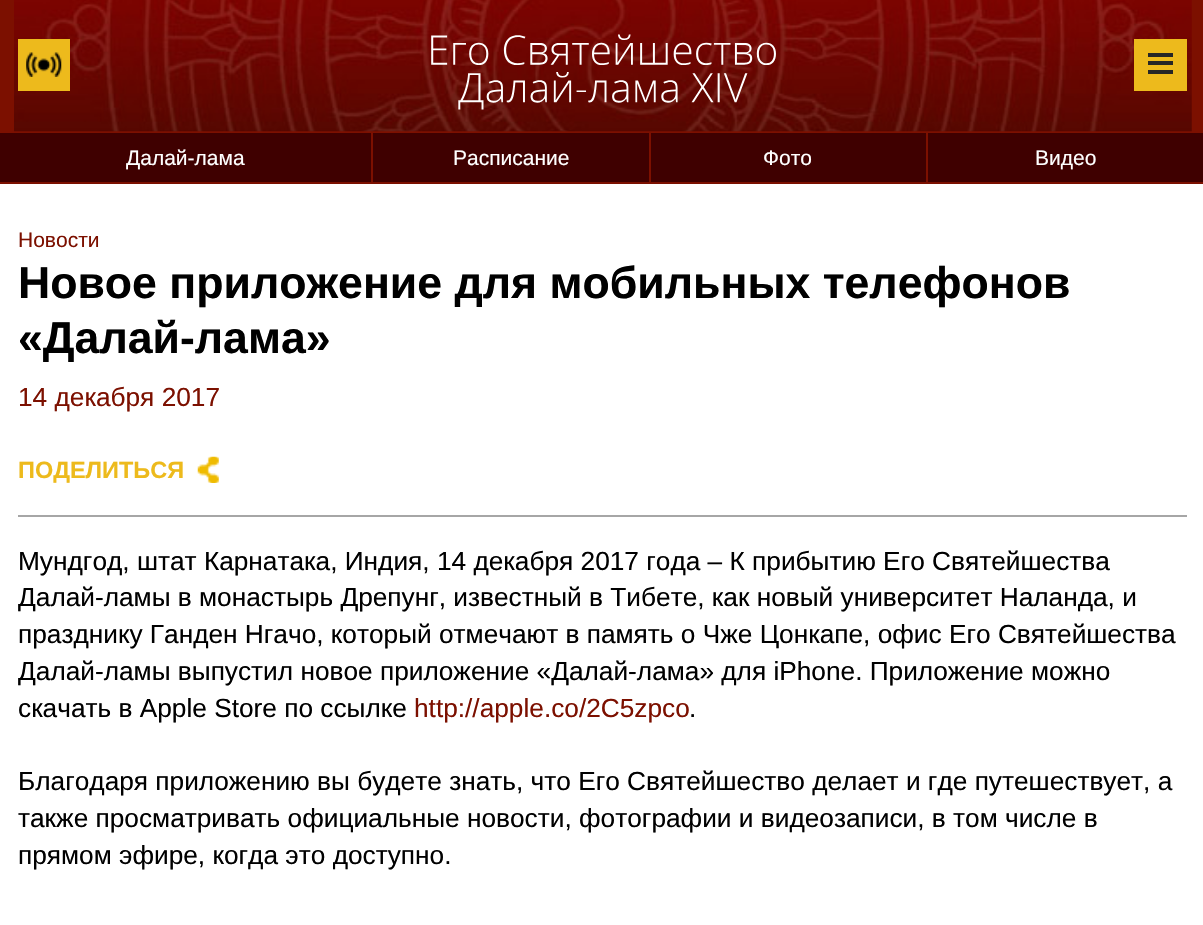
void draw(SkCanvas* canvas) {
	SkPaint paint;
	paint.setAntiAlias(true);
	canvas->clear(0xffffffff);
	paint.setColor(0xff7c1000);
	canvas->drawRect(SkRect::MakeXYWH(0, 0, 1203, 133), paint);
	canvas->drawImageRect(SkImages::DeferredFromEncodedData(SkData::MakeFromFileName("img1.png")), SkRect::MakeXYWH(14, 0, 1178, 132), SkSamplingOptions());
	paint.setColor(0xffedba1c);
	canvas->drawRect(SkRect::MakeXYWH(18, 39, 52, 52), paint);
	canvas->drawImageRect(SkImages::DeferredFromEncodedData(SkData::MakeFromFileName("img2.png")), SkRect::MakeXYWH(26, 52, 36, 25), SkSamplingOptions());
	canvas->drawImageRect(SkImages::DeferredFromEncodedData(SkData::MakeFromFileName("img3.png")), SkRect::MakeXYWH(431, 34, 345, 76), SkSamplingOptions());
	canvas->drawRect(SkRect::MakeXYWH(1134, 39, 53, 52), paint);
	paint.setColor(0xff262626);
	canvas->drawRect(SkRect::MakeXYWH(1148, 53, 25, 4), paint);
	canvas->drawRect(SkRect::MakeXYWH(1148, 61, 25, 4), paint);
	canvas->drawRect(SkRect::MakeXYWH(1148, 70, 25, 4), paint);
	paint.setColor(0xff3f0000);
	canvas->drawRect(SkRect::MakeXYWH(0, 133, 1203, 49), paint);
	paint.setColor(0xff7c1000);
	canvas->drawRect(SkRect::MakeXYWH(0, 182, 1203, 2), paint);
	canvas->drawRect(SkRect::MakeXYWH(371, 133, 2, 49), paint);
	SkFont f1(fontMgr->matchFamilyStyle("Liberation Sans", SkFontStyle::Normal()), 21);
	f1.setSubpixel(true);
	paint.setColor(0xffffffff);
	canvas->drawString("Далай-лама", 126, 165, f1, paint);
	paint.setColor(0xff7c1000);
	canvas->drawRect(SkRect::MakeXYWH(649, 133, 2, 49), paint);
	paint.setColor(0xffffffff);
	canvas->drawString("Расписание", 453, 165, f1, paint);
	paint.setColor(0xff7c1000);
	canvas->drawRect(SkRect::MakeXYWH(926, 133, 2, 49), paint);
	paint.setColor(0xffffffff);
	canvas->drawString("Фото", 763, 165, f1, paint);
	canvas->drawString("Видео", 1035, 165, f1, paint);
	paint.setColor(0xffa6a6a6);
	canvas->drawRect(SkRect::MakeXYWH(18, 515, 1169, 2), paint);
	paint.setColor(0xff7c1000);
	canvas->drawString("Новости", 18, 247, f1, paint);
	SkFont f2(fontMgr->matchFamilyStyle("Liberation Sans", SkFontStyle::Bold()), 44.6);
	f2.setSubpixel(true);
	paint.setColor(0xff000000);
	canvas->drawString("Новое приложение для мобильных телефонов", 18, 298, f2, paint);
	canvas->drawString("«Далай-лама»", 18, 353, f2, paint);
	SkFont f3(fontMgr->matchFamilyStyle("Liberation Sans", SkFontStyle::Normal()), 26.25);
	f3.setSubpixel(true);
	paint.setColor(0xff7c1000);
	canvas->drawString("14 декабря 2017", 18, 406, f3, paint);
	SkFont f4(fontMgr->matchFamilyStyle("Liberation Sans", SkFontStyle::Bold()), 23.5);
	f4.setSubpixel(true);
	paint.setColor(0xffedba1c);
	canvas->drawString("ПОДЕЛИТЬСЯ", 18, 478, f4, paint);
	canvas->drawImageRect(SkImages::DeferredFromEncodedData(SkData::MakeFromFileName("img4.png")), SkRect::MakeXYWH(197, 456, 22, 27), SkSamplingOptions());
	paint.setColor(0xff000000);
	canvas->drawString("Мундгод, штат Карнатака, Индия, 14 декабря 2017 года – К прибытию Его Святейшества", 18, 570, f3, paint);
	canvas->drawString("Далай-ламы в монастырь Дрепунг, известный в Тибете, как новый университет Наланда, и", 18, 606, f3, paint);
	canvas->drawString("празднику Ганден Нгачо, который отмечают в память о Чже Цонкапе, офис Его Святейшества", 18, 643, f3, paint);
	canvas->drawString("Далай-ламы выпустил новое приложение «Далай-лама» для iPhone. Приложение можно", 18, 680, f3, paint);
	canvas->drawString("скачать в Apple Store по ссылке", 18, 717, f3, paint);
	paint.setColor(0xff7c1000);
	canvas->drawString("http://apple.co/2C5zpco", 414, 717, f3, paint);
	paint.setColor(0xff000000);
	canvas->drawString(".", 689, 717, f3, paint);
	canvas->drawString("Благодаря приложению вы будете знать, что Его Святейшество делает и где путешествует, а", 18, 790, f3, paint);
	canvas->drawString("также просматривать официальные новости, фотографии и видеозаписи, в том числе в", 18, 827, f3, paint);
	canvas->drawString("прямом эфире, когда это доступно.", 18, 864, f3, paint);
}
